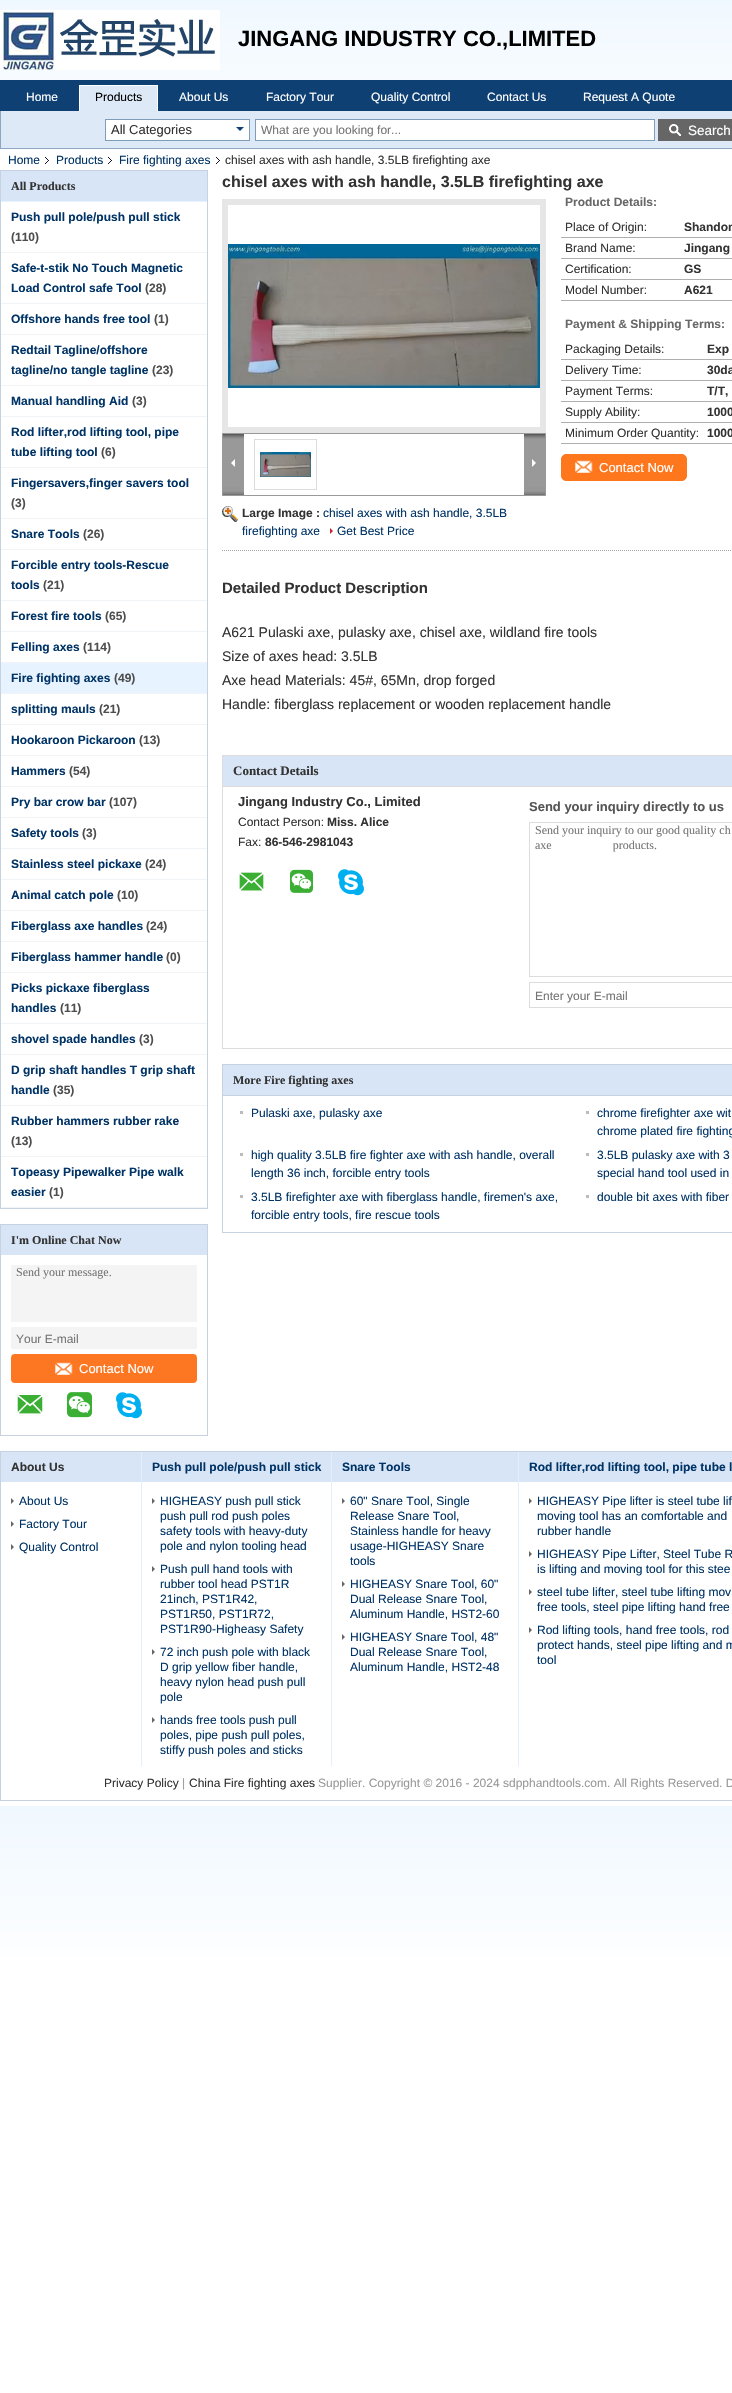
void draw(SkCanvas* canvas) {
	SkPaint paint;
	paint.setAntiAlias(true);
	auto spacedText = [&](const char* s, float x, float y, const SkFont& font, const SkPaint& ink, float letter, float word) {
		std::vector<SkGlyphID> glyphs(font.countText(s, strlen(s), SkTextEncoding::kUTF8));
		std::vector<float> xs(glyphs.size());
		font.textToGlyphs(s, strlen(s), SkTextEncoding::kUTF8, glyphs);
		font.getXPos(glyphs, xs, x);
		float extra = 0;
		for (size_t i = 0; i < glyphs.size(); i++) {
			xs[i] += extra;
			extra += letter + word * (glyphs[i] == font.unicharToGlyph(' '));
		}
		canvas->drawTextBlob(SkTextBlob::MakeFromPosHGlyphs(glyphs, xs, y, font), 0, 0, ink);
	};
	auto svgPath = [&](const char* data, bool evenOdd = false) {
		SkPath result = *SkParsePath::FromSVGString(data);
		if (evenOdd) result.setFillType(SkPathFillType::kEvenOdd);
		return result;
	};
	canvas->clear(0xffffffff);
	{
		const SkColor colors[] = {0xfff0f8ff, 0xffffffff, 0xffffffff};
		const float stops[] = {0, 0.1, 1};
		const SkPoint ends[] = {{366, 0}, {366, 1806}};
		paint.setShader(SkGradientShader::MakeLinear(ends, colors, stops, 3, SkTileMode::kClamp));
		paint.setAlpha(255);
	}
	canvas->drawRect(SkRect::MakeXYWH(0, 0, 732, 151), paint);
	{
		const SkColor colors[] = {0xfff0f8ff, 0xffffffff, 0xffffffff};
		const float stops[] = {0, 0.1, 1};
		const SkPoint ends[] = {{366, 1806}, {366, 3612}};
		paint.setShader(SkGradientShader::MakeLinear(ends, colors, stops, 3, SkTileMode::kClamp));
		paint.setAlpha(255);
	}
	canvas->drawRect(SkRect::MakeXYWH(0, 1806, 732, 151), paint);
	canvas->drawImageRect(SkImages::DeferredFromEncodedData(SkData::MakeFromFileName("img1.png")), SkRect::MakeXYWH(0, 10, 220, 60), SkSamplingOptions());
	SkFont f1(fontMgr->matchFamilyStyle("Liberation Sans", SkFontStyle::Bold()), 22);
	f1.setSubpixel(true);
	paint.setShader(nullptr);
	paint.setColor(0xff000000);
	canvas->drawString("JINGANG INDUSTRY CO.,LIMITED", 238, 46, f1, paint);
	paint.setColor(0xff8ea6c1);
	canvas->drawRect(SkRect::MakeXYWH(0, 148, 732, 1), paint);
	canvas->drawRect(SkRect::MakeXYWH(0, 110, 1, 39), paint);
	paint.setColor(0xff0e4074);
	canvas->drawRect(SkRect::MakeXYWH(0, 80, 732, 31), paint);
	SkFont f2(fontMgr->matchFamilyStyle("Liberation Sans", SkFontStyle::Normal()), 12);
	f2.setSubpixel(true);
	paint.setColor(0xffffffff);
	canvas->drawString("Home", 26, 101, f2, paint);
	paint.setColor(0xffdde9f6);
	canvas->drawRect(SkRect::MakeXYWH(80, 86, 77, 25), paint);
	canvas->drawRect(SkRect::MakeXYWH(1, 111, 731, 37), paint);
	canvas->save();
	canvas->clipRect(SkRect::MakeXYWH(0, 80, 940, 31));
	paint.setStroke(true);
	paint.setStrokeWidth(1);
	paint.setColor(0xffffffff);
	canvas->drawRect(SkRect::MakeXYWH(79.5, 85.5, 78, 39), paint);
	canvas->restore();
	paint.setStroke(false);
	paint.setColor(0xff000000);
	canvas->drawString("Products", 95, 101, f2, paint);
	paint.setColor(0xffffffff);
	canvas->drawString("About Us", 179, 101, f2, paint);
	canvas->drawString("Factory Tour", 266, 101, f2, paint);
	canvas->drawString("Quality Control", 371, 101, f2, paint);
	canvas->drawString("Contact Us", 487, 101, f2, paint);
	canvas->drawString("Request A Quote", 583, 101, f2, paint);
	paint.setStroke(true);
	paint.setColor(0xff7f9db9);
	canvas->drawRect(SkRect::MakeXYWH(105.5, 119.5, 144, 21), paint);
	paint.setStroke(false);
	paint.setColor(0xffffffff);
	canvas->drawRect(SkRect::MakeXYWH(106, 120, 143, 20), paint);
	SkFont f3(fontMgr->matchFamilyStyle("Liberation Sans", SkFontStyle::Normal()), 13);
	f3.setSubpixel(true);
	paint.setColor(0xff333333);
	canvas->drawString("All Categories", 111, 134, f3, paint);
	paint.setColor(0xff0e4074);
	canvas->drawPath(svgPath("M236 127H244L240 131Z"), paint);
	paint.setColor(0xffffffff);
	canvas->drawRect(SkRect::MakeXYWH(255.5, 119.5, 399, 21), paint);
	paint.setStroke(true);
	paint.setColor(0xff7f9db9);
	canvas->drawRect(SkRect::MakeXYWH(255.5, 119.5, 399, 21), paint);
	paint.setStroke(false);
	paint.setColor(0xff757575);
	canvas->drawString("What are you looking for...", 261, 134, f2, paint);
	paint.setColor(0xff666666);
	canvas->drawRect(SkRect::MakeXYWH(658, 119, 74, 22), paint);
	canvas->drawImageRect(SkImages::DeferredFromEncodedData(SkData::MakeFromFileName("img2.png")), SkRect::MakeXYWH(669, 124, 12, 12), SkSamplingOptions());
	SkFont f4(fontMgr->matchFamilyStyle("Liberation Sans", SkFontStyle::Normal()), 13.5);
	f4.setSubpixel(true);
	paint.setColor(0xffffffff);
	canvas->drawString("Search", 688, 135, f4, paint);
	paint.setColor(0xff003366);
	canvas->drawString("Home", 8, 164, f2, paint);
	canvas->drawImageRect(SkImages::DeferredFromEncodedData(SkData::MakeFromFileName("img3.png")), SkRect::MakeXYWH(45, 157, 4, 7), SkSamplingOptions());
	canvas->drawString("Products", 56, 164, f2, paint);
	canvas->drawImageRect(SkImages::DeferredFromEncodedData(SkData::MakeFromFileName("img3.png")), SkRect::MakeXYWH(108, 157, 4, 7), SkSamplingOptions());
	canvas->drawString("Fire fighting axes", 119, 164, f2, paint);
	canvas->drawImageRect(SkImages::DeferredFromEncodedData(SkData::MakeFromFileName("img3.png")), SkRect::MakeXYWH(216, 157, 4, 7), SkSamplingOptions());
	paint.setColor(0xff333333);
	canvas->drawString("chisel axes with ash handle, 3.5LB firefighting axe", 225, 164, f2, paint);
	paint.setStroke(true);
	paint.setColor(0xffc6d2e0);
	canvas->drawRect(SkRect::MakeXYWH(0.5, 170.5, 207, 1038), paint);
	paint.setStroke(false);
	paint.setColor(0xffd8e5f6);
	canvas->drawRect(SkRect::MakeXYWH(1, 171, 206, 30), paint);
	paint.setColor(0xffe7f3ff);
	canvas->drawRect(SkRect::MakeXYWH(1, 201, 206, 1), paint);
	SkFont f5(fontMgr->matchFamilyStyle("Liberation Serif", SkFontStyle::Bold()), 12);
	f5.setSubpixel(true);
	paint.setColor(0xff333333);
	canvas->drawString("All Products", 11, 190, f5, paint);
	paint.setColor(0xfff0f4f6);
	canvas->drawRect(SkRect::MakeXYWH(1, 252, 206, 1), paint);
	SkFont f6(fontMgr->matchFamilyStyle("Liberation Sans", SkFontStyle::Bold()), 12);
	f6.setSubpixel(true);
	paint.setColor(0xff003366);
	canvas->drawString("Push pull pole/push pull stick", 11, 221, f6, paint);
	paint.setColor(0xff4e4e4e);
	canvas->drawString("(110)", 11, 241, f6, paint);
	paint.setColor(0xfff0f4f6);
	canvas->drawRect(SkRect::MakeXYWH(1, 303, 206, 1), paint);
	paint.setColor(0xff003366);
	canvas->drawString("Safe-t-stik No Touch Magnetic", 11, 272, f6, paint);
	canvas->drawString("Load Control safe Tool", 11, 292, f6, paint);
	paint.setColor(0xff4e4e4e);
	canvas->drawString("(28)", 145, 292, f6, paint);
	paint.setColor(0xfff0f4f6);
	canvas->drawRect(SkRect::MakeXYWH(1, 334, 206, 1), paint);
	paint.setColor(0xff003366);
	canvas->drawString("Offshore hands free tool", 11, 323, f6, paint);
	paint.setColor(0xff4e4e4e);
	canvas->drawString("(1)", 154, 323, f6, paint);
	paint.setColor(0xfff0f4f6);
	canvas->drawRect(SkRect::MakeXYWH(1, 385, 206, 1), paint);
	paint.setColor(0xff003366);
	canvas->drawString("Redtail Tagline/offshore", 11, 354, f6, paint);
	canvas->drawString("tagline/no tangle tagline", 11, 374, f6, paint);
	paint.setColor(0xff4e4e4e);
	canvas->drawString("(23)", 152, 374, f6, paint);
	paint.setColor(0xfff0f4f6);
	canvas->drawRect(SkRect::MakeXYWH(1, 416, 206, 1), paint);
	paint.setColor(0xff003366);
	canvas->drawString("Manual handling Aid", 11, 405, f6, paint);
	paint.setColor(0xff4e4e4e);
	canvas->drawString("(3)", 132, 405, f6, paint);
	paint.setColor(0xfff0f4f6);
	canvas->drawRect(SkRect::MakeXYWH(1, 467, 206, 1), paint);
	paint.setColor(0xff003366);
	canvas->drawString("Rod lifter,rod lifting tool, pipe", 11, 436, f6, paint);
	canvas->drawString("tube lifting tool", 11, 456, f6, paint);
	paint.setColor(0xff4e4e4e);
	canvas->drawString("(6)", 101, 456, f6, paint);
	paint.setColor(0xfff0f4f6);
	canvas->drawRect(SkRect::MakeXYWH(1, 518, 206, 1), paint);
	paint.setColor(0xff003366);
	canvas->drawString("Fingersavers,finger savers tool", 11, 487, f6, paint);
	paint.setColor(0xff4e4e4e);
	canvas->drawString("(3)", 11, 507, f6, paint);
	paint.setColor(0xfff0f4f6);
	canvas->drawRect(SkRect::MakeXYWH(1, 549, 206, 1), paint);
	paint.setColor(0xff003366);
	canvas->drawString("Snare Tools", 11, 538, f6, paint);
	paint.setColor(0xff4e4e4e);
	canvas->drawString("(26)", 83, 538, f6, paint);
	paint.setColor(0xfff0f4f6);
	canvas->drawRect(SkRect::MakeXYWH(1, 600, 206, 1), paint);
	paint.setColor(0xff003366);
	canvas->drawString("Forcible entry tools-Rescue", 11, 569, f6, paint);
	canvas->drawString("tools", 11, 589, f6, paint);
	paint.setColor(0xff4e4e4e);
	canvas->drawString("(21)", 43, 589, f6, paint);
	paint.setColor(0xfff0f4f6);
	canvas->drawRect(SkRect::MakeXYWH(1, 631, 206, 1), paint);
	paint.setColor(0xff003366);
	canvas->drawString("Forest fire tools", 11, 620, f6, paint);
	paint.setColor(0xff4e4e4e);
	canvas->drawString("(65)", 105, 620, f6, paint);
	paint.setColor(0xfff0f4f6);
	canvas->drawRect(SkRect::MakeXYWH(1, 662, 206, 1), paint);
	paint.setColor(0xff003366);
	canvas->drawString("Felling axes", 11, 651, f6, paint);
	paint.setColor(0xff4e4e4e);
	canvas->drawString("(114)", 83, 651, f6, paint);
	paint.setColor(0xffe7f3ff);
	canvas->drawRect(SkRect::MakeXYWH(1, 663, 206, 30), paint);
	paint.setColor(0xfff0f4f6);
	canvas->drawRect(SkRect::MakeXYWH(1, 693, 206, 1), paint);
	paint.setColor(0xff003366);
	canvas->drawString("Fire fighting axes", 11, 682, f6, paint);
	paint.setColor(0xff4e4e4e);
	canvas->drawString("(49)", 114, 682, f6, paint);
	paint.setColor(0xfff0f4f6);
	canvas->drawRect(SkRect::MakeXYWH(1, 724, 206, 1), paint);
	paint.setColor(0xff003366);
	canvas->drawString("splitting mauls", 11, 713, f6, paint);
	paint.setColor(0xff4e4e4e);
	canvas->drawString("(21)", 99, 713, f6, paint);
	paint.setColor(0xfff0f4f6);
	canvas->drawRect(SkRect::MakeXYWH(1, 755, 206, 1), paint);
	paint.setColor(0xff003366);
	canvas->drawString("Hookaroon Pickaroon", 11, 744, f6, paint);
	paint.setColor(0xff4e4e4e);
	canvas->drawString("(13)", 139, 744, f6, paint);
	paint.setColor(0xfff0f4f6);
	canvas->drawRect(SkRect::MakeXYWH(1, 786, 206, 1), paint);
	paint.setColor(0xff003366);
	canvas->drawString("Hammers", 11, 775, f6, paint);
	paint.setColor(0xff4e4e4e);
	canvas->drawString("(54)", 69, 775, f6, paint);
	paint.setColor(0xfff0f4f6);
	canvas->drawRect(SkRect::MakeXYWH(1, 817, 206, 1), paint);
	paint.setColor(0xff003366);
	canvas->drawString("Pry bar crow bar", 11, 806, f6, paint);
	paint.setColor(0xff4e4e4e);
	canvas->drawString("(107)", 109, 806, f6, paint);
	paint.setColor(0xfff0f4f6);
	canvas->drawRect(SkRect::MakeXYWH(1, 848, 206, 1), paint);
	paint.setColor(0xff003366);
	canvas->drawString("Safety tools", 11, 837, f6, paint);
	paint.setColor(0xff4e4e4e);
	canvas->drawString("(3)", 82, 837, f6, paint);
	paint.setColor(0xfff0f4f6);
	canvas->drawRect(SkRect::MakeXYWH(1, 879, 206, 1), paint);
	paint.setColor(0xff003366);
	canvas->drawString("Stainless steel pickaxe", 11, 868, f6, paint);
	paint.setColor(0xff4e4e4e);
	canvas->drawString("(24)", 145, 868, f6, paint);
	paint.setColor(0xfff0f4f6);
	canvas->drawRect(SkRect::MakeXYWH(1, 910, 206, 1), paint);
	paint.setColor(0xff003366);
	canvas->drawString("Animal catch pole", 11, 899, f6, paint);
	paint.setColor(0xff4e4e4e);
	canvas->drawString("(10)", 117, 899, f6, paint);
	paint.setColor(0xfff0f4f6);
	canvas->drawRect(SkRect::MakeXYWH(1, 941, 206, 1), paint);
	paint.setColor(0xff003366);
	canvas->drawString("Fiberglass axe handles", 11, 930, f6, paint);
	paint.setColor(0xff4e4e4e);
	canvas->drawString("(24)", 146, 930, f6, paint);
	paint.setColor(0xfff0f4f6);
	canvas->drawRect(SkRect::MakeXYWH(1, 972, 206, 1), paint);
	paint.setColor(0xff003366);
	canvas->drawString("Fiberglass hammer handle", 11, 961, f6, paint);
	paint.setColor(0xff4e4e4e);
	canvas->drawString("(0)", 166, 961, f6, paint);
	paint.setColor(0xfff0f4f6);
	canvas->drawRect(SkRect::MakeXYWH(1, 1023, 206, 1), paint);
	paint.setColor(0xff003366);
	canvas->drawString("Picks pickaxe fiberglass", 11, 992, f6, paint);
	canvas->drawString("handles", 11, 1012, f6, paint);
	paint.setColor(0xff4e4e4e);
	canvas->drawString("(11)", 60, 1012, f6, paint);
	paint.setColor(0xfff0f4f6);
	canvas->drawRect(SkRect::MakeXYWH(1, 1054, 206, 1), paint);
	paint.setColor(0xff003366);
	canvas->drawString("shovel spade handles", 11, 1043, f6, paint);
	paint.setColor(0xff4e4e4e);
	canvas->drawString("(3)", 139, 1043, f6, paint);
	paint.setColor(0xfff0f4f6);
	canvas->drawRect(SkRect::MakeXYWH(1, 1105, 206, 1), paint);
	paint.setColor(0xff003366);
	canvas->drawString("D grip shaft handles T grip shaft", 11, 1074, f6, paint);
	canvas->drawString("handle", 11, 1094, f6, paint);
	paint.setColor(0xff4e4e4e);
	canvas->drawString("(35)", 53, 1094, f6, paint);
	paint.setColor(0xfff0f4f6);
	canvas->drawRect(SkRect::MakeXYWH(1, 1156, 206, 1), paint);
	paint.setColor(0xff003366);
	canvas->drawString("Rubber hammers rubber rake", 11, 1125, f6, paint);
	paint.setColor(0xff4e4e4e);
	canvas->drawString("(13)", 11, 1145, f6, paint);
	paint.setColor(0xfff0f4f6);
	canvas->drawRect(SkRect::MakeXYWH(1, 1207, 206, 1), paint);
	paint.setColor(0xff003366);
	canvas->drawString("Topeasy Pipewalker Pipe walk", 11, 1176, f6, paint);
	canvas->drawString("easier", 11, 1196, f6, paint);
	paint.setColor(0xff4e4e4e);
	canvas->drawString("(1)", 49, 1196, f6, paint);
	paint.setStroke(true);
	paint.setColor(0xffc6d2e0);
	canvas->drawRect(SkRect::MakeXYWH(0.5, 1224.5, 207, 211), paint);
	paint.setStroke(false);
	paint.setColor(0xffd8e5f6);
	canvas->drawRect(SkRect::MakeXYWH(1, 1225, 206, 30), paint);
	paint.setColor(0xff333333);
	canvas->drawString("I'm Online Chat Now", 11, 1244, f5, paint);
	paint.setColor(0xfff4f4f4);
	canvas->drawRect(SkRect::MakeXYWH(11, 1265, 186, 57), paint);
	SkFont f7(fontMgr->matchFamilyStyle("Liberation Serif", SkFontStyle::Normal()), 12);
	f7.setSubpixel(true);
	paint.setColor(0xff757575);
	canvas->drawString("Send your message.", 16, 1276, f7, paint);
	paint.setColor(0xfff4f4f4);
	canvas->drawRect(SkRect::MakeXYWH(11, 1327, 186, 22), paint);
	paint.setColor(0xff757575);
	canvas->drawString("Your E-mail", 16, 1343, f2, paint);
	paint.setColor(0xfffd7722);
	canvas->drawRoundRect(SkRect::MakeXYWH(11, 1354, 186, 29), 4, 4, paint);
	canvas->drawImageRect(SkImages::DeferredFromEncodedData(SkData::MakeFromFileName("img4.png")), SkRect::MakeXYWH(55, 1362, 18, 13), SkSamplingOptions());
	paint.setColor(0xffffffff);
	canvas->drawString("Contact Now", 79, 1373, f3, paint);
	canvas->drawImageRect(SkImages::DeferredFromEncodedData(SkData::MakeFromFileName("img5.png")), SkRect::MakeXYWH(17, 1395, 26, 19), SkSamplingOptions());
	canvas->drawImageRect(SkImages::DeferredFromEncodedData(SkData::MakeFromFileName("img6.png")), SkRect::MakeXYWH(67, 1392, 25, 26), SkSamplingOptions());
	canvas->drawImageRect(SkImages::DeferredFromEncodedData(SkData::MakeFromFileName("img7.png")), SkRect::MakeXYWH(116, 1392, 26, 27), SkSamplingOptions());
	SkFont f8(fontMgr->matchFamilyStyle("Liberation Sans", SkFontStyle::Bold()), 16);
	f8.setSubpixel(true);
	paint.setColor(0xff333333);
	canvas->drawString("chisel axes with ash handle, 3.5LB firefighting axe", 222, 187, f8, paint);
	paint.setStroke(true);
	paint.setColor(0xffa2a2a2);
	paint.setPathEffect(SkDashPathEffect::Make({{1, 1}}, 0));
	canvas->drawPath(svgPath("M222 550.5H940"), paint);
	paint.setPathEffect(nullptr);
	paint.setStroke(false);
	paint.setColor(0xff686868);
	canvas->drawString("Product Details:", 565, 206, f6, paint);
	paint.setColor(0xff333333);
	canvas->drawString("Place of Origin:", 565, 231, f2, paint);
	paint.setColor(0xffafafaf);
	canvas->drawRect(SkRect::MakeXYWH(561, 237, 171, 1), paint);
	paint.setColor(0xff333333);
	canvas->drawString("Shandon", 684, 231, f6, paint);
	canvas->drawString("Brand Name:", 565, 252, f2, paint);
	paint.setColor(0xffafafaf);
	canvas->drawRect(SkRect::MakeXYWH(561, 258, 171, 1), paint);
	paint.setColor(0xff333333);
	canvas->drawString("Jingang", 684, 252, f6, paint);
	canvas->drawString("Certification:", 565, 273, f2, paint);
	paint.setColor(0xffafafaf);
	canvas->drawRect(SkRect::MakeXYWH(561, 279, 171, 1), paint);
	paint.setColor(0xff333333);
	canvas->drawString("GS", 684, 273, f6, paint);
	canvas->drawString("Model Number:", 565, 294, f2, paint);
	paint.setColor(0xffafafaf);
	canvas->drawRect(SkRect::MakeXYWH(561, 300, 171, 1), paint);
	paint.setColor(0xff333333);
	canvas->drawString("A621", 684, 294, f6, paint);
	paint.setColor(0xff686868);
	canvas->drawString("Payment & Shipping Terms:", 565, 328, f6, paint);
	paint.setColor(0xff333333);
	canvas->drawString("Packaging Details:", 565, 353, f2, paint);
	paint.setColor(0xffafafaf);
	canvas->drawRect(SkRect::MakeXYWH(561, 359, 171, 1), paint);
	paint.setColor(0xff333333);
	canvas->drawString("Exp", 707, 353, f6, paint);
	canvas->drawString("Delivery Time:", 565, 374, f2, paint);
	paint.setColor(0xffafafaf);
	canvas->drawRect(SkRect::MakeXYWH(561, 380, 171, 1), paint);
	paint.setColor(0xff333333);
	canvas->drawString("30da", 707, 374, f6, paint);
	canvas->drawString("Payment Terms:", 565, 395, f2, paint);
	paint.setColor(0xffafafaf);
	canvas->drawRect(SkRect::MakeXYWH(561, 401, 171, 1), paint);
	paint.setColor(0xff333333);
	canvas->drawString("T/T,", 707, 395, f6, paint);
	canvas->drawString("Supply Ability:", 565, 416, f2, paint);
	paint.setColor(0xffafafaf);
	canvas->drawRect(SkRect::MakeXYWH(561, 422, 171, 1), paint);
	paint.setColor(0xff333333);
	canvas->drawString("1000", 707, 416, f6, paint);
	canvas->drawString("Minimum Order Quantity:", 565, 437, f2, paint);
	paint.setColor(0xffafafaf);
	canvas->drawRect(SkRect::MakeXYWH(561, 443, 171, 1), paint);
	paint.setColor(0xff333333);
	canvas->drawString("1000", 707, 437, f6, paint);
	paint.setColor(0xffff771c);
	canvas->drawRoundRect(SkRect::MakeXYWH(561.5, 454.5, 125, 26), 4.5, 4.5, paint);
	paint.setStroke(true);
	canvas->drawRoundRect(SkRect::MakeXYWH(561.5, 454.5, 125, 26), 4.5, 4.5, paint);
	canvas->drawImageRect(SkImages::DeferredFromEncodedData(SkData::MakeFromFileName("img8.png")), SkRect::MakeXYWH(575, 460, 18, 13), SkSamplingOptions());
	paint.setStroke(false);
	paint.setColor(0xffffffff);
	canvas->drawString("Contact Now", 599, 472, f3, paint);
	paint.setStroke(true);
	paint.setStrokeWidth(6);
	paint.setColor(0xffe6e6e6);
	canvas->drawRect(SkRect::MakeXYWH(225, 202, 318, 228), paint);
	canvas->drawImageRect(SkImages::DeferredFromEncodedData(SkData::MakeFromFileName("img9.png")), SkRect::MakeXYWH(228, 244, 312, 144), SkSamplingOptions());
	paint.setStrokeWidth(1);
	paint.setColor(0xff999999);
	canvas->drawRect(SkRect::MakeXYWH(222.5, 433.5, 323, 62), paint);
	canvas->drawImageRect(SkImages::DeferredFromEncodedData(SkData::MakeFromFileName("img10.png")), SkRect::MakeXYWH(223, 434, 21, 61), SkSamplingOptions());
	paint.setStroke(false);
	paint.setColor(0xffffffff);
	canvas->drawPath(svgPath("M235 459V467L231 463Z"), paint);
	paint.setStroke(true);
	paint.setColor(0xffdcdcdc);
	canvas->drawRect(SkRect::MakeXYWH(254.5, 439.5, 62, 50), paint);
	canvas->drawImageRect(SkImages::DeferredFromEncodedData(SkData::MakeFromFileName("img11.png")), SkRect::MakeXYWH(260, 452, 51, 25), SkSamplingOptions());
	canvas->drawImageRect(SkImages::DeferredFromEncodedData(SkData::MakeFromFileName("img10.png")), SkRect::MakeXYWH(524, 434, 21, 61), SkSamplingOptions());
	paint.setStroke(false);
	paint.setColor(0xffffffff);
	canvas->drawPath(svgPath("M532 467V459L536 463Z"), paint);
	canvas->drawImageRect(SkImages::DeferredFromEncodedData(SkData::MakeFromFileName("img12.png")), SkRect::MakeXYWH(222, 506, 16, 16), SkSamplingOptions());
	paint.setColor(0xff333333);
	canvas->drawString("Large Image :", 242, 517, f6, paint);
	paint.setColor(0xff003366);
	canvas->drawString("chisel axes with ash handle, 3.5LB", 323, 517, f2, paint);
	canvas->drawString("firefighting axe", 242, 535, f2, paint);
	paint.setColor(0xffc9242b);
	canvas->drawPath(svgPath("M330 534V528L333 531Z"), paint);
	paint.setColor(0xff003366);
	canvas->drawString("Get Best Price", 337, 535, f2, paint);
	SkFont f9(fontMgr->matchFamilyStyle("Liberation Sans", SkFontStyle::Bold()), 15);
	f9.setSubpixel(true);
	paint.setColor(0xff333333);
	canvas->drawString("Detailed Product Description", 222, 593, f9, paint);
	SkFont f10(fontMgr->matchFamilyStyle("Liberation Sans", SkFontStyle::Normal()), 14);
	f10.setSubpixel(true);
	canvas->drawString("A621 Pulaski axe, pulasky axe, chisel axe, wildland fire tools", 222, 637, f10, paint);
	canvas->drawString("Size of axes head: 3.5LB", 222, 661, f10, paint);
	canvas->drawString("Axe head Materials: 45#, 65Mn, drop forged", 222, 685, f10, paint);
	canvas->drawString("Handle: fiberglass replacement or wooden replacement handle", 222, 709, f10, paint);
	paint.setColor(0xffd8e5f6);
	canvas->drawRect(SkRect::MakeXYWH(222.5, 755.5, 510, 31), paint);
	paint.setStroke(true);
	paint.setColor(0xffdddddd);
	canvas->drawRect(SkRect::MakeXYWH(222.5, 755.5, 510, 31), paint);
	SkFont f11(fontMgr->matchFamilyStyle("Liberation Serif", SkFontStyle::Bold()), 13);
	f11.setSubpixel(true);
	paint.setStroke(false);
	paint.setColor(0xff333333);
	canvas->drawString("Contact Details", 233, 775, f11, paint);
	paint.setColor(0xffdddddd);
	canvas->drawRect(SkRect::MakeXYWH(222, 1048, 510, 1), paint);
	canvas->drawRect(SkRect::MakeXYWH(222, 787, 1, 262), paint);
	SkFont f12(fontMgr->matchFamilyStyle("Liberation Sans", SkFontStyle::Bold()), 13);
	f12.setSubpixel(true);
	paint.setColor(0xff333333);
	canvas->drawString("Jingang Industry Co., Limited", 238, 806, f12, paint);
	canvas->drawString("Contact Person:", 238, 826, f2, paint);
	canvas->drawString("Miss. Alice", 327, 826, f6, paint);
	canvas->drawString("Fax:", 238, 846, f2, paint);
	canvas->drawString("86-546-2981043", 265, 846, f6, paint);
	canvas->drawImageRect(SkImages::DeferredFromEncodedData(SkData::MakeFromFileName("img13.png")), SkRect::MakeXYWH(239, 872, 25, 19), SkSamplingOptions());
	canvas->drawImageRect(SkImages::DeferredFromEncodedData(SkData::MakeFromFileName("img14.png")), SkRect::MakeXYWH(290, 869, 23, 24), SkSamplingOptions());
	canvas->drawImageRect(SkImages::DeferredFromEncodedData(SkData::MakeFromFileName("img7.png")), SkRect::MakeXYWH(338, 869, 26, 27), SkSamplingOptions());
	paint.setColor(0xff555555);
	canvas->drawString("Send your inquiry directly to us", 529, 811, f12, paint);
	paint.setStroke(true);
	paint.setColor(0xffdddddd);
	canvas->drawRect(SkRect::MakeXYWH(529.5, 822.5, 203, 154), paint);
	paint.setStroke(false);
	paint.setColor(0xff757575);
	canvas->drawString("Send your inquiry to our good quality ch", 535, 834, f7, paint);
	spacedText("axe products.", 535, 849, f7, paint, 0, 58);
	paint.setStroke(true);
	paint.setColor(0xffdddddd);
	canvas->drawRect(SkRect::MakeXYWH(529.5, 982.5, 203, 25), paint);
	paint.setStroke(false);
	paint.setColor(0xff757575);
	canvas->drawString("Enter your E-mail", 535, 1000, f2, paint);
	paint.setColor(0xffd8e5f6);
	canvas->drawRect(SkRect::MakeXYWH(222.5, 1064.5, 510, 31), paint);
	paint.setStroke(true);
	paint.setColor(0xffc6d2e0);
	canvas->drawRect(SkRect::MakeXYWH(222.5, 1064.5, 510, 31), paint);
	paint.setStroke(false);
	paint.setColor(0xff333333);
	canvas->drawString("More Fire fighting axes", 233, 1084, f5, paint);
	paint.setColor(0xffc6d2e0);
	canvas->drawRect(SkRect::MakeXYWH(222, 1232, 510, 1), paint);
	canvas->drawRect(SkRect::MakeXYWH(222, 1096, 1, 137), paint);
	paint.setColor(0xffbbbbbb);
	canvas->drawRect(SkRect::MakeXYWH(240, 1111, 3, 3), paint);
	paint.setColor(0xff003366);
	canvas->drawString("Pulaski axe, pulasky axe", 251, 1117, f2, paint);
	paint.setColor(0xffbbbbbb);
	canvas->drawRect(SkRect::MakeXYWH(586, 1111, 3, 3), paint);
	paint.setColor(0xff003366);
	canvas->drawString("chrome firefighter axe wit", 597, 1117, f2, paint);
	canvas->drawString("chrome plated fire fighting", 597, 1135, f2, paint);
	paint.setColor(0xffbbbbbb);
	canvas->drawRect(SkRect::MakeXYWH(240, 1153, 3, 3), paint);
	paint.setColor(0xff003366);
	canvas->drawString("high quality 3.5LB fire fighter axe with ash handle, overall", 251, 1159, f2, paint);
	canvas->drawString("length 36 inch, forcible entry tools", 251, 1177, f2, paint);
	paint.setColor(0xffbbbbbb);
	canvas->drawRect(SkRect::MakeXYWH(586, 1153, 3, 3), paint);
	paint.setColor(0xff003366);
	canvas->drawString("3.5LB pulasky axe with 3", 597, 1159, f2, paint);
	canvas->drawString("special hand tool used in", 597, 1177, f2, paint);
	paint.setColor(0xffbbbbbb);
	canvas->drawRect(SkRect::MakeXYWH(240, 1195, 3, 3), paint);
	paint.setColor(0xff003366);
	canvas->drawString("3.5LB firefighter axe with fiberglass handle, firemen's axe,", 251, 1201, f2, paint);
	canvas->drawString("forcible entry tools, fire rescue tools", 251, 1219, f2, paint);
	paint.setColor(0xffbbbbbb);
	canvas->drawRect(SkRect::MakeXYWH(586, 1195, 3, 3), paint);
	paint.setColor(0xff003366);
	canvas->drawString("double bit axes with fiber", 597, 1201, f2, paint);
	paint.setStroke(true);
	paint.setColor(0xffc6d2e0);
	canvas->drawRect(SkRect::MakeXYWH(0.5, 1451.5, 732, 349), paint);
	paint.setStroke(false);
	paint.setColor(0xffe4effc);
	canvas->drawRect(SkRect::MakeXYWH(141, 1452, 1, 314), paint);
	paint.setColor(0xffd8e5f6);
	canvas->drawRect(SkRect::MakeXYWH(1, 1452, 140, 30), paint);
	paint.setColor(0xff333333);
	canvas->drawString("About Us", 11, 1471, f6, paint);
	paint.setColor(0xff666666);
	canvas->drawPath(svgPath("M11 1504V1498L14 1501Z"), paint);
	paint.setColor(0xff003366);
	canvas->drawString("About Us", 19, 1505, f2, paint);
	paint.setColor(0xff666666);
	canvas->drawPath(svgPath("M11 1527V1521L14 1524Z"), paint);
	paint.setColor(0xff003366);
	canvas->drawString("Factory Tour", 19, 1528, f2, paint);
	paint.setColor(0xff666666);
	canvas->drawPath(svgPath("M11 1550V1544L14 1547Z"), paint);
	paint.setColor(0xff003366);
	canvas->drawString("Quality Control", 19, 1551, f2, paint);
	paint.setColor(0xffe4effc);
	canvas->drawRect(SkRect::MakeXYWH(331, 1452, 1, 314), paint);
	paint.setColor(0xffd8e5f6);
	canvas->drawRect(SkRect::MakeXYWH(142, 1452, 189, 30), paint);
	paint.setColor(0xff003366);
	canvas->drawString("Push pull pole/push pull stick", 152, 1471, f6, paint);
	paint.setColor(0xff666666);
	canvas->drawPath(svgPath("M152 1504V1498L155 1501Z"), paint);
	paint.setColor(0xff003366);
	canvas->drawString("HIGHEASY push pull stick", 160, 1505, f2, paint);
	canvas->drawString("push pull rod push poles", 160, 1520, f2, paint);
	canvas->drawString("safety tools with heavy-duty", 160, 1535, f2, paint);
	canvas->drawString("pole and nylon tooling head", 160, 1550, f2, paint);
	paint.setColor(0xff666666);
	canvas->drawPath(svgPath("M152 1572V1566L155 1569Z"), paint);
	paint.setColor(0xff003366);
	canvas->drawString("Push pull hand tools with", 160, 1573, f2, paint);
	canvas->drawString("rubber tool head PST1R", 160, 1588, f2, paint);
	canvas->drawString("21inch, PST1R42,", 160, 1603, f2, paint);
	canvas->drawString("PST1R50, PST1R72,", 160, 1618, f2, paint);
	canvas->drawString("PST1R90-Higheasy Safety", 160, 1633, f2, paint);
	paint.setColor(0xff666666);
	canvas->drawPath(svgPath("M152 1655V1649L155 1652Z"), paint);
	paint.setColor(0xff003366);
	canvas->drawString("72 inch push pole with black", 160, 1656, f2, paint);
	canvas->drawString("D grip yellow fiber handle,", 160, 1671, f2, paint);
	canvas->drawString("heavy nylon head push pull", 160, 1686, f2, paint);
	canvas->drawString("pole", 160, 1701, f2, paint);
	paint.setColor(0xff666666);
	canvas->drawPath(svgPath("M152 1723V1717L155 1720Z"), paint);
	paint.setColor(0xff003366);
	canvas->drawString("hands free tools push pull", 160, 1724, f2, paint);
	canvas->drawString("poles, pipe push pull poles,", 160, 1739, f2, paint);
	canvas->drawString("stiffy push poles and sticks", 160, 1754, f2, paint);
	paint.setColor(0xffe4effc);
	canvas->drawRect(SkRect::MakeXYWH(518, 1452, 1, 314), paint);
	paint.setColor(0xffd8e5f6);
	canvas->drawRect(SkRect::MakeXYWH(332, 1452, 186, 30), paint);
	paint.setColor(0xff003366);
	canvas->drawString("Snare Tools", 342, 1471, f6, paint);
	paint.setColor(0xff666666);
	canvas->drawPath(svgPath("M342 1504V1498L345 1501Z"), paint);
	paint.setColor(0xff003366);
	canvas->drawString("60\" Snare Tool, Single", 350, 1505, f2, paint);
	canvas->drawString("Release Snare Tool,", 350, 1520, f2, paint);
	canvas->drawString("Stainless handle for heavy", 350, 1535, f2, paint);
	canvas->drawString("usage-HIGHEASY Snare", 350, 1550, f2, paint);
	canvas->drawString("tools", 350, 1565, f2, paint);
	paint.setColor(0xff666666);
	canvas->drawPath(svgPath("M342 1587V1581L345 1584Z"), paint);
	paint.setColor(0xff003366);
	canvas->drawString("HIGHEASY Snare Tool, 60\"", 350, 1588, f2, paint);
	canvas->drawString("Dual Release Snare Tool,", 350, 1603, f2, paint);
	canvas->drawString("Aluminum Handle, HST2-60", 350, 1618, f2, paint);
	paint.setColor(0xff666666);
	canvas->drawPath(svgPath("M342 1640V1634L345 1637Z"), paint);
	paint.setColor(0xff003366);
	canvas->drawString("HIGHEASY Snare Tool, 48\"", 350, 1641, f2, paint);
	canvas->drawString("Dual Release Snare Tool,", 350, 1656, f2, paint);
	canvas->drawString("Aluminum Handle, HST2-48", 350, 1671, f2, paint);
	paint.setColor(0xffd8e5f6);
	canvas->drawRect(SkRect::MakeXYWH(519, 1452, 213, 30), paint);
	paint.setColor(0xff003366);
	canvas->drawString("Rod lifter,rod lifting tool, pipe tube l", 529, 1471, f6, paint);
	paint.setColor(0xff666666);
	canvas->drawPath(svgPath("M529 1504V1498L532 1501Z"), paint);
	paint.setColor(0xff003366);
	canvas->drawString("HIGHEASY Pipe lifter is steel tube lif", 537, 1505, f2, paint);
	canvas->drawString("moving tool has an comfortable and", 537, 1520, f2, paint);
	canvas->drawString("rubber handle", 537, 1535, f2, paint);
	paint.setColor(0xff666666);
	canvas->drawPath(svgPath("M529 1557V1551L532 1554Z"), paint);
	paint.setColor(0xff003366);
	canvas->drawString("HIGHEASY Pipe Lifter, Steel Tube R", 537, 1558, f2, paint);
	canvas->drawString("is lifting and moving tool for this stee", 537, 1573, f2, paint);
	paint.setColor(0xff666666);
	canvas->drawPath(svgPath("M529 1595V1589L532 1592Z"), paint);
	paint.setColor(0xff003366);
	canvas->drawString("steel tube lifter, steel tube lifting mov", 537, 1596, f2, paint);
	canvas->drawString("free tools, steel pipe lifting hand free", 537, 1611, f2, paint);
	paint.setColor(0xff666666);
	canvas->drawPath(svgPath("M529 1633V1627L532 1630Z"), paint);
	paint.setColor(0xff003366);
	canvas->drawString("Rod lifting tools, hand free tools, rod", 537, 1634, f2, paint);
	canvas->drawString("protect hands, steel pipe lifting and m", 537, 1649, f2, paint);
	canvas->drawString("tool", 537, 1664, f2, paint);
	paint.setColor(0xff333333);
	canvas->drawString("Privacy Policy", 104, 1787, f2, paint);
	paint.setColor(0xff999999);
	canvas->drawString("|", 182, 1787, f2, paint);
	paint.setColor(0xff333333);
	canvas->drawString("China Fire fighting axes", 189, 1787, f2, paint);
	paint.setColor(0xff999999);
	canvas->drawString("Supplier. Copyright © 2016 - 2024 sdpphandtools.com. All Rights Reserved. D", 318, 1787, f2, paint);
}
